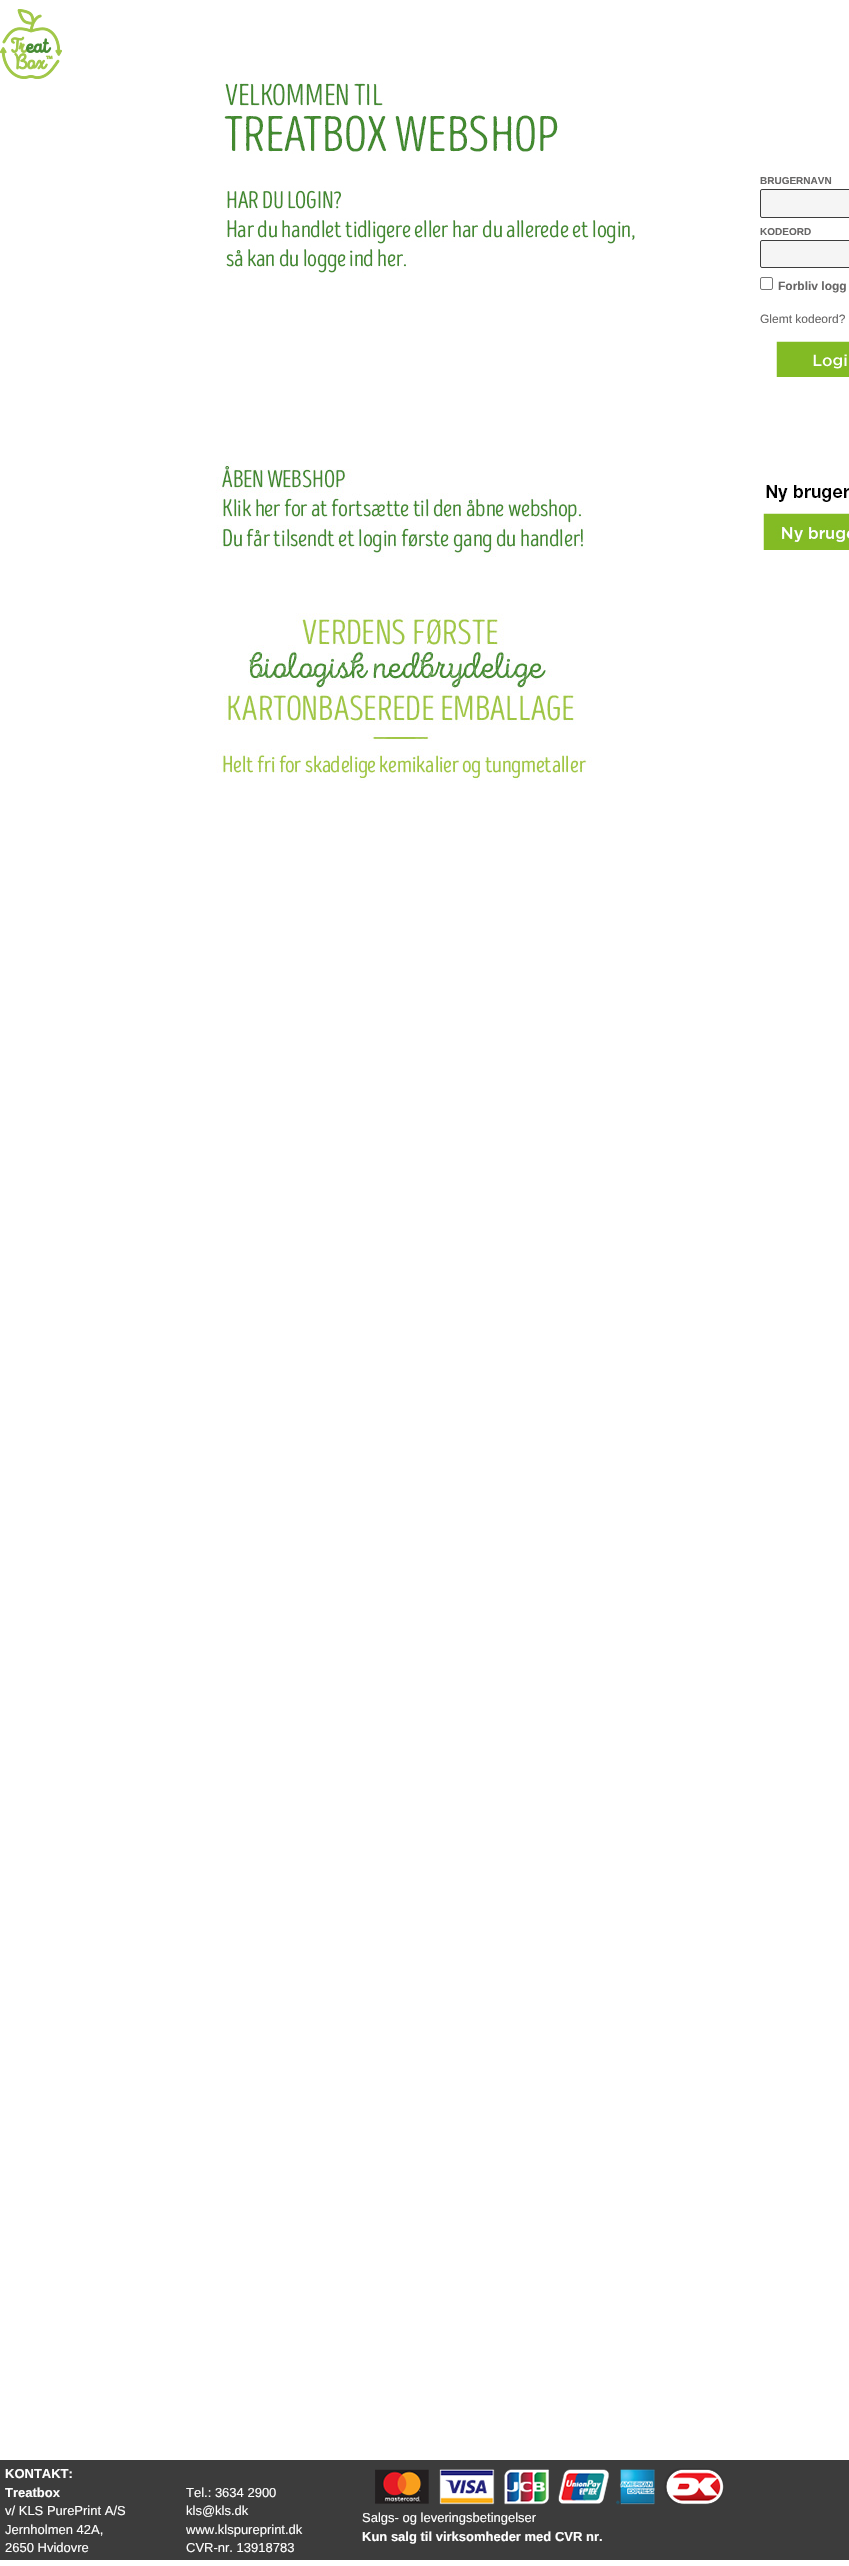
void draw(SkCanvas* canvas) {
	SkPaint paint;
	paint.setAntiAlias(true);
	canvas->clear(0xffffffff);
	canvas->drawImageRect(SkImages::DeferredFromEncodedData(SkData::MakeFromFileName("img1.png")), SkRect::MakeXYWH(0, 9, 62, 70), SkSamplingOptions());
	canvas->drawImageRect(SkImages::DeferredFromEncodedData(SkData::MakeFromFileName("img2.png")), SkRect::MakeXYWH(224, 83, 411, 190), SkSamplingOptions());
	SkFont f1(fontMgr->matchFamilyStyle("Liberation Sans", SkFontStyle::Bold()), 10);
	f1.setSubpixel(true);
	paint.setColor(0xff676666);
	canvas->drawString("BRUGERNAVN", 760, 184, f1, paint);
	paint.setColor(0xfff5f5f5);
	canvas->drawRoundRect(SkRect::MakeXYWH(760.5, 189.5, 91, 28), 1.5, 1.5, paint);
	paint.setStroke(true);
	paint.setStrokeWidth(1);
	paint.setColor(0xff3c3c3c);
	canvas->drawRoundRect(SkRect::MakeXYWH(760.5, 189.5, 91, 28), 1.5, 1.5, paint);
	paint.setStroke(false);
	paint.setColor(0xff676666);
	canvas->drawString("KODEORD", 760, 235, f1, paint);
	paint.setColor(0xfff5f5f5);
	canvas->drawRoundRect(SkRect::MakeXYWH(760.5, 240.5, 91, 27), 1.5, 1.5, paint);
	paint.setStroke(true);
	paint.setColor(0xff3c3c3c);
	canvas->drawRoundRect(SkRect::MakeXYWH(760.5, 240.5, 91, 27), 1.5, 1.5, paint);
	paint.setColor(0xff767676);
	canvas->drawRoundRect(SkRect::MakeXYWH(760.5, 277.5, 12, 12), 1.5, 1.5, paint);
	SkFont f2(fontMgr->matchFamilyStyle("Liberation Sans", SkFontStyle::Bold()), 12);
	f2.setSubpixel(true);
	paint.setStroke(false);
	paint.setColor(0xff676666);
	canvas->drawString("Forbliv logg", 778, 290, f2, paint);
	SkFont f3(fontMgr->matchFamilyStyle("Liberation Sans", SkFontStyle::Normal()), 12);
	f3.setSubpixel(true);
	canvas->drawString("Glemt kodeord?", 760, 323, f3, paint);
	canvas->drawImageRect(SkImages::DeferredFromEncodedData(SkData::MakeFromFileName("img3.png")), SkRect::MakeXYWH(776, 341, 73, 36), SkSamplingOptions());
	canvas->drawImageRect(SkImages::DeferredFromEncodedData(SkData::MakeFromFileName("img4.png")), SkRect::MakeXYWH(216, 461, 376, 320), SkSamplingOptions());
	canvas->drawImageRect(SkImages::DeferredFromEncodedData(SkData::MakeFromFileName("img5.png")), SkRect::MakeXYWH(763, 485, 86, 65), SkSamplingOptions());
	paint.setColor(0xff3c3c3c);
	canvas->drawRect(SkRect::MakeXYWH(0, 2460, 849, 100), paint);
	SkFont f4(fontMgr->matchFamilyStyle("Liberation Sans", SkFontStyle::Bold()), 13);
	f4.setSubpixel(true);
	paint.setColor(0xffffffff);
	canvas->drawString("KONTAKT:", 5, 2478, f4, paint);
	canvas->drawString("Treatbox", 5, 2497, f4, paint);
	SkFont f5(fontMgr->matchFamilyStyle("Liberation Sans", SkFontStyle::Normal()), 13);
	f5.setSubpixel(true);
	canvas->drawString("v/ KLS PurePrint A/S", 5, 2515, f5, paint);
	canvas->drawString("Jernholmen 42A,", 5, 2534, f5, paint);
	canvas->drawString("2650 Hvidovre", 5, 2552, f5, paint);
	canvas->drawString("Tel.: 3634 2900", 186, 2497, f5, paint);
	canvas->drawString("kls@kls.dk", 186, 2515, f5, paint);
	canvas->drawString("www.klspureprint.dk", 186, 2534, f5, paint);
	canvas->drawString("CVR-nr. 13918783", 186, 2552, f5, paint);
	canvas->drawImageRect(SkImages::DeferredFromEncodedData(SkData::MakeFromFileName("img6.png")), SkRect::MakeXYWH(375, 2468, 349, 37), SkSamplingOptions());
	canvas->drawString("Salgs- og leveringsbetingelser", 362, 2522, f5, paint);
	canvas->drawString("Kun salg til virksomheder med CVR nr.", 362, 2541, f4, paint);
}
